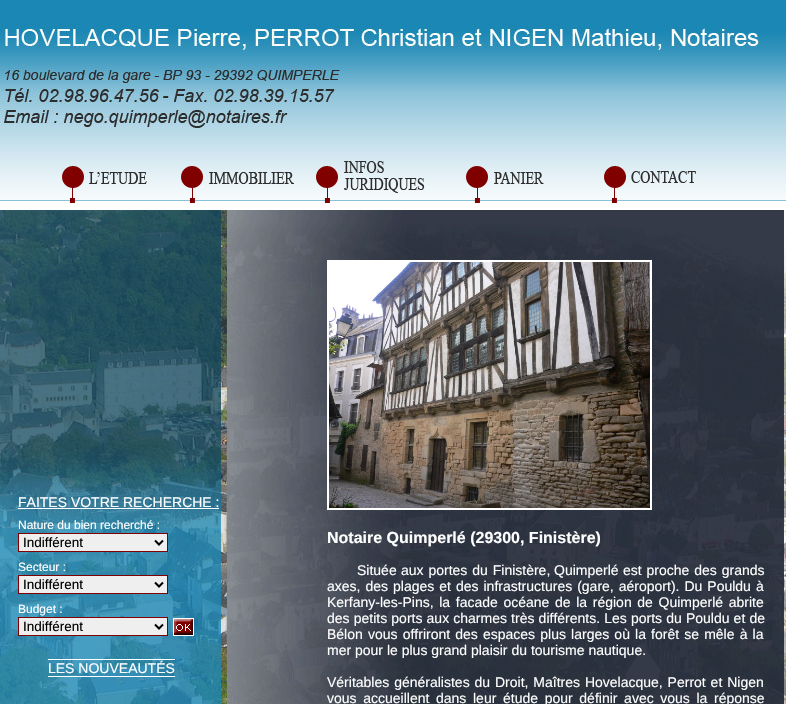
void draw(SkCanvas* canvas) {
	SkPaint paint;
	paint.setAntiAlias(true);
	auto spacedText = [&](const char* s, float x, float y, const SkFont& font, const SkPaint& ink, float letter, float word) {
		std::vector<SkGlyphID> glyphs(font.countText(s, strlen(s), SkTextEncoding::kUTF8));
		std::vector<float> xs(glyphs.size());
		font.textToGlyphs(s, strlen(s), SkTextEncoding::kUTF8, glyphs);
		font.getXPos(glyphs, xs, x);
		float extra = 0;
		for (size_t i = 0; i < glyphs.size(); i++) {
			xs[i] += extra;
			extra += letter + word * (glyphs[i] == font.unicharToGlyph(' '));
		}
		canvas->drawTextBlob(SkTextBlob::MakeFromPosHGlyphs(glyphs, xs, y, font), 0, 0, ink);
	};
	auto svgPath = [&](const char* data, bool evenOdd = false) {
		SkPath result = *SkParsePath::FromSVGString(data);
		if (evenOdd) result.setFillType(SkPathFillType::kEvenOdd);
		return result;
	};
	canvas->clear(0xffffffff);
	canvas->drawImageRect(SkImages::DeferredFromEncodedData(SkData::MakeFromFileName("img1.png")), SkRect::MakeXYWH(0, 0, 786, 156), SkSamplingOptions());
	canvas->drawImageRect(SkImages::DeferredFromEncodedData(SkData::MakeFromFileName("img2.png")), SkRect::MakeXYWH(0, 156, 152, 47), SkSamplingOptions());
	canvas->drawImageRect(SkImages::DeferredFromEncodedData(SkData::MakeFromFileName("img3.png")), SkRect::MakeXYWH(152, 156, 146, 47), SkSamplingOptions());
	canvas->drawImageRect(SkImages::DeferredFromEncodedData(SkData::MakeFromFileName("img4.png")), SkRect::MakeXYWH(298, 156, 132, 47), SkSamplingOptions());
	canvas->drawImageRect(SkImages::DeferredFromEncodedData(SkData::MakeFromFileName("img5.png")), SkRect::MakeXYWH(430, 156, 119, 47), SkSamplingOptions());
	canvas->drawImageRect(SkImages::DeferredFromEncodedData(SkData::MakeFromFileName("img6.png")), SkRect::MakeXYWH(549, 156, 235, 47), SkSamplingOptions());
	canvas->drawImageRect(SkImages::DeferredFromEncodedData(SkData::MakeFromFileName("img7.png")), SkRect::MakeXYWH(784, 156, 2, 45), SkSamplingOptions());
	canvas->drawImageRect(SkImages::DeferredFromEncodedData(SkData::MakeFromFileName("img8.png")), SkRect::MakeXYWH(0, 210, 227, 494), SkSamplingOptions());
	SkFont f1(fontMgr->matchFamilyStyle("Liberation Sans", SkFontStyle::Normal()), 14);
	f1.setSubpixel(true);
	paint.setColor(0xffffffff);
	canvas->drawString("FAITES VOTRE RECHERCHE :", 18, 507, f1, paint);
	canvas->drawRect(SkRect::MakeXYWH(18, 508, 201, 1), paint);
	SkFont f2(fontMgr->matchFamilyStyle("Liberation Sans", SkFontStyle::Normal()), 12);
	f2.setSubpixel(true);
	canvas->drawString("Nature du bien recherché :", 18, 529, f2, paint);
	paint.setColor(0xffefefef);
	canvas->drawRect(SkRect::MakeXYWH(18.5, 533.5, 149, 18), paint);
	paint.setStroke(true);
	paint.setStrokeWidth(1);
	paint.setColor(0xff800000);
	canvas->drawRect(SkRect::MakeXYWH(18.5, 533.5, 149, 18), paint);
	paint.setStrokeWidth(2);
	paint.setColor(0xff000000);
	canvas->drawPath(svgPath("M155 540.5L159 544.5L163 540.5"), paint);
	SkFont f3(fontMgr->matchFamilyStyle("Liberation Sans", SkFontStyle::Normal()), 13.5);
	f3.setSubpixel(true);
	paint.setStroke(false);
	canvas->drawString("Indifférent", 23, 547, f3, paint);
	paint.setColor(0xffffffff);
	canvas->drawString("Secteur :", 18, 571, f2, paint);
	paint.setColor(0xffefefef);
	canvas->drawRect(SkRect::MakeXYWH(18.5, 575.5, 149, 18), paint);
	paint.setStroke(true);
	paint.setStrokeWidth(1);
	paint.setColor(0xff800000);
	canvas->drawRect(SkRect::MakeXYWH(18.5, 575.5, 149, 18), paint);
	paint.setStrokeWidth(2);
	paint.setColor(0xff000000);
	canvas->drawPath(svgPath("M155 582.5L159 586.5L163 582.5"), paint);
	paint.setStroke(false);
	canvas->drawString("Indifférent", 23, 589, f3, paint);
	paint.setColor(0xffffffff);
	canvas->drawString("Budget :", 18, 613, f2, paint);
	paint.setColor(0xffefefef);
	canvas->drawRect(SkRect::MakeXYWH(18.5, 617.5, 149, 18), paint);
	paint.setStroke(true);
	paint.setStrokeWidth(1);
	paint.setColor(0xff800000);
	canvas->drawRect(SkRect::MakeXYWH(18.5, 617.5, 149, 18), paint);
	paint.setStrokeWidth(2);
	paint.setColor(0xff000000);
	canvas->drawPath(svgPath("M155 624.5L159 628.5L163 624.5"), paint);
	paint.setStroke(false);
	canvas->drawString("Indifférent", 23, 631, f3, paint);
	canvas->drawImageRect(SkImages::DeferredFromEncodedData(SkData::MakeFromFileName("img9.png")), SkRect::MakeXYWH(173, 618, 21, 18), SkSamplingOptions());
	paint.setColor(0xffffffff);
	canvas->drawString("LES NOUVEAUTÉS", 48, 673, f1, paint);
	canvas->drawRect(SkRect::MakeXYWH(48, 659, 127, 1), paint);
	canvas->drawRect(SkRect::MakeXYWH(48, 676, 127, 1), paint);
	canvas->drawImageRect(SkImages::DeferredFromEncodedData(SkData::MakeFromFileName("img10.png")), SkRect::MakeXYWH(227, 210, 557, 494), SkSamplingOptions());
	paint.setStroke(true);
	canvas->drawRect(SkRect::MakeXYWH(328, 261, 323, 248), paint);
	canvas->drawImageRect(SkImages::DeferredFromEncodedData(SkData::MakeFromFileName("img11.png")), SkRect::MakeXYWH(329, 262, 321, 246), SkSamplingOptions());
	SkFont f4(fontMgr->matchFamilyStyle("Liberation Sans", SkFontStyle::Bold()), 16);
	f4.setSubpixel(true);
	paint.setStroke(false);
	canvas->drawString("Notaire Quimperlé (29300, Finistère)", 327, 543, f4, paint);
	canvas->drawString("Située", 357, 575, f1, paint);
	spacedText("aux portes du Finistère,", 401, 575, f1, paint, 0, 1);
	canvas->drawString("Quimperlé", 554, 575, f1, paint);
	spacedText("est proche des grands", 623, 575, f1, paint, 0, 1);
	spacedText("axes, des plages et des infrastructures (gare, aéroport). Du Pouldu à", 327, 591, f1, paint, 0, 1.1);
	spacedText("Kerfany-les-Pins, la facade océane de la région de Quimperlé abrite", 327, 607, f1, paint, 0, 1.75);
	spacedText("des petits ports aux charmes très différents. Les ports du Pouldu et de", 327, 623, f1, paint, 0, 0.25);
	spacedText("Bélon vous offriront des espaces plus larges où la forêt se mêle à la", 327, 639, f1, paint, 0, 1.25);
	canvas->drawString("mer pour le plus grand plaisir du tourisme nautique.", 327, 655, f1, paint);
	spacedText("Véritables généralistes du Droit, Maîtres Hovelacque, Perrot et Nigen", 327, 687, f1, paint, 0, 1);
	spacedText("vous accueillent dans leur étude pour définir avec vous la réponse", 327, 703, f1, paint, 0, 2.75);
	canvas->drawImageRect(SkImages::DeferredFromEncodedData(SkData::MakeFromFileName("img12.png")), SkRect::MakeXYWH(784, 237, 2, 467), SkSamplingOptions());
}
